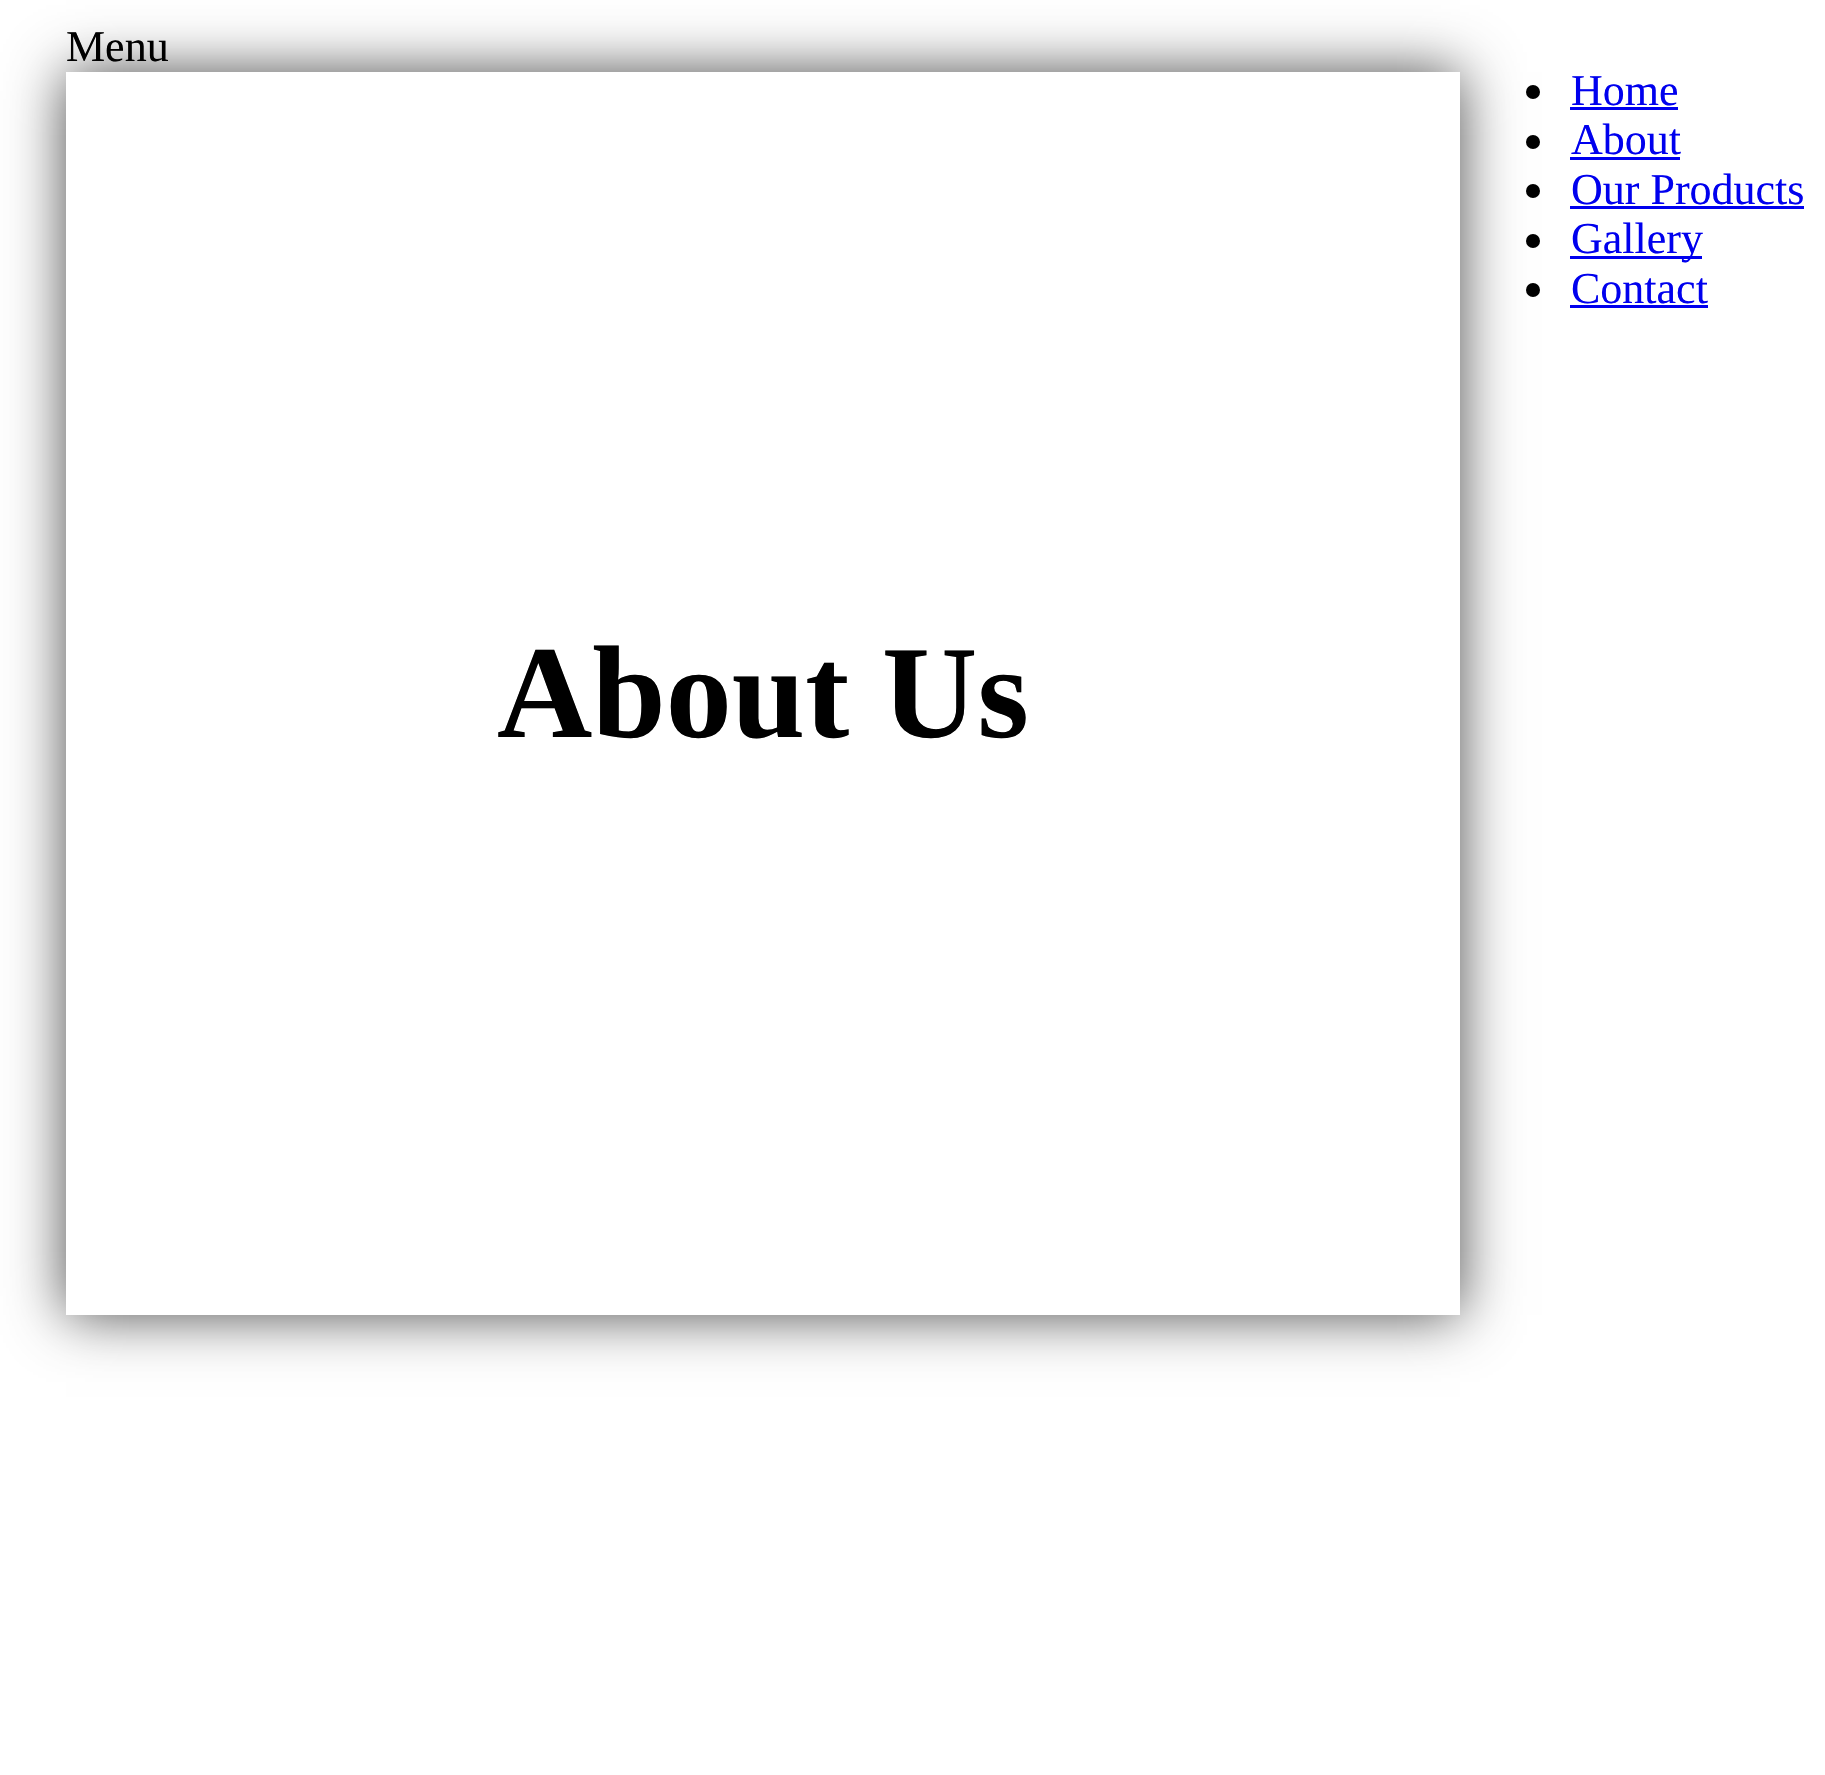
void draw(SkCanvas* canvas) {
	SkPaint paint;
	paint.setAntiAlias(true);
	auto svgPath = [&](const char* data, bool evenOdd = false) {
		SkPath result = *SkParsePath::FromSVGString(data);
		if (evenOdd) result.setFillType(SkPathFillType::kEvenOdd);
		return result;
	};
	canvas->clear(0xffffffff);
	SkFont f1(fontMgr->matchFamilyStyle("Liberation Serif", SkFontStyle::Normal()), 44);
	f1.setSubpixel(true);
	paint.setColor(0xff000000);
	canvas->drawString("Menu", 66, 61, f1, paint);
	canvas->drawCircle(1533, 92, 7, paint);
	paint.setColor(0xff0000ee);
	canvas->drawString("Home", 1571, 105, f1, paint);
	canvas->drawRect(SkRect::MakeXYWH(1570, 107, 108, 3), paint);
	paint.setColor(0xff000000);
	canvas->drawCircle(1533, 142, 7, paint);
	paint.setColor(0xff0000ee);
	canvas->drawString("About", 1571, 154, f1, paint);
	canvas->drawRect(SkRect::MakeXYWH(1570, 157, 110, 3), paint);
	paint.setColor(0xff000000);
	canvas->drawCircle(1533, 191, 7, paint);
	paint.setColor(0xff0000ee);
	canvas->drawString("Our Products", 1571, 204, f1, paint);
	canvas->drawRect(SkRect::MakeXYWH(1570, 206, 234, 3), paint);
	paint.setColor(0xff000000);
	canvas->drawCircle(1533, 241, 7, paint);
	paint.setColor(0xff0000ee);
	canvas->drawRect(SkRect::MakeXYWH(1570, 256, 132, 3), paint);
	canvas->drawString("Gallery", 1571, 253, f1, paint);
	paint.setColor(0xff000000);
	canvas->drawCircle(1533, 290, 7, paint);
	paint.setColor(0xff0000ee);
	canvas->drawString("Contact", 1571, 303, f1, paint);
	canvas->drawRect(SkRect::MakeXYWH(1570, 305, 138, 3), paint);
	canvas->save();
	canvas->clipPath(svgPath("M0 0H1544V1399H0ZM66 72H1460V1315H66Z", true), true);
	paint.setColor(0xb3000000);
	paint.setMaskFilter(SkMaskFilter::MakeBlur(kNormal_SkBlurStyle, 27.5));
	canvas->drawRect(SkRect::MakeXYWH(66, 72, 1394, 1243), paint);
	paint.setMaskFilter(nullptr);
	canvas->restore();
	SkFont f2(fontMgr->matchFamilyStyle("Liberation Serif", SkFontStyle::Bold()), 132);
	f2.setSubpixel(true);
	paint.setColor(0xff000000);
	canvas->drawString("About Us", 497, 737, f2, paint);
}
